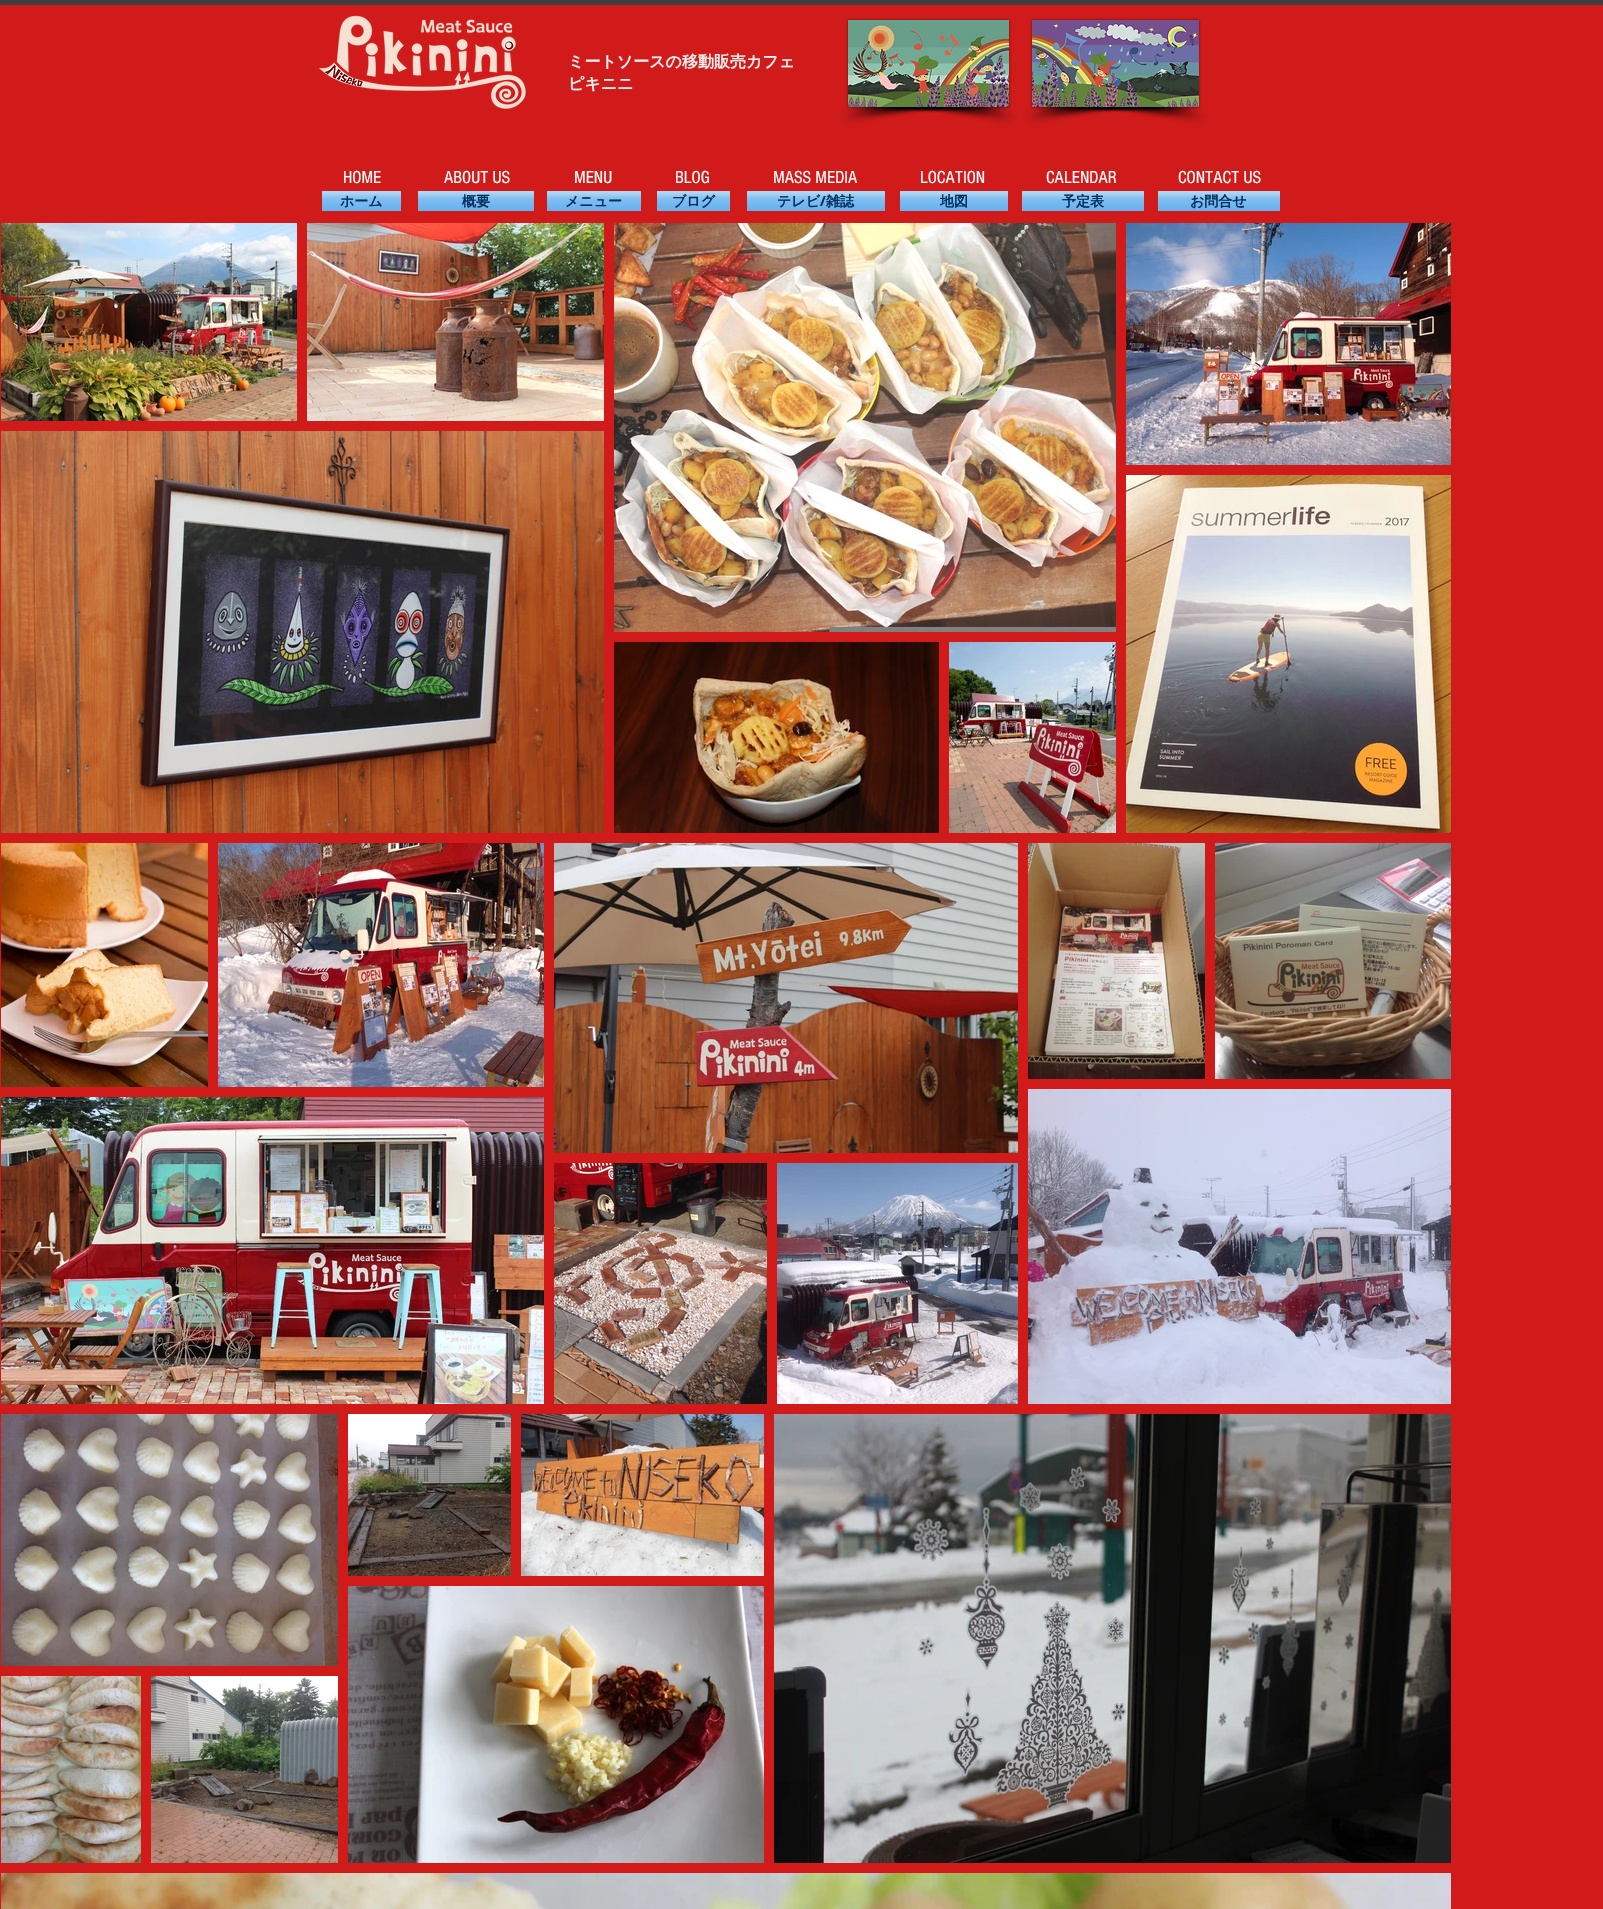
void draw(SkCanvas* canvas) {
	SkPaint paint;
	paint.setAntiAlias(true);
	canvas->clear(0xffd11b1b);
	paint.setColor(0xff3e3e3e);
	canvas->drawRect(SkRect::MakeXYWH(0, 0, 1603, 5), paint);
	canvas->drawImageRect(SkImages::DeferredFromEncodedData(SkData::MakeFromFileName("img1.png")), SkRect::MakeXYWH(319, 15, 207, 94), SkSamplingOptions());
	SkFont f1(fontMgr->matchFamilyStyle("WenQuanYi Zen Hei", SkFontStyle::Bold()), 16);
	f1.setSubpixel(true);
	paint.setColor(0xffefefef);
	canvas->drawString("ミートソースの移動販売カフェ", 568, 67, f1, paint);
	canvas->drawString("ピキニニ", 568, 89, f1, paint);
	paint.setColor(0x80000000);
	paint.setMaskFilter(SkMaskFilter::MakeBlur(kNormal_SkBlurStyle, 1.5));
	canvas->drawRect(SkRect::MakeXYWH(848, 20, 161, 87), paint);
	paint.setMaskFilter(nullptr);
	canvas->drawImageRect(SkImages::DeferredFromEncodedData(SkData::MakeFromFileName("img2.png")), SkRect::MakeXYWH(848, 20, 161, 87), SkSamplingOptions());
	canvas->drawImageRect(SkImages::DeferredFromEncodedData(SkData::MakeFromFileName("img3.png")), SkRect::MakeXYWH(839, 107, 154, 18), SkSamplingOptions());
	canvas->drawImageRect(SkImages::DeferredFromEncodedData(SkData::MakeFromFileName("img4.png")), SkRect::MakeXYWH(896, 107, 122, 18), SkSamplingOptions());
	paint.setMaskFilter(SkMaskFilter::MakeBlur(kNormal_SkBlurStyle, 1.5));
	canvas->drawRect(SkRect::MakeXYWH(1032, 20, 167, 87), paint);
	paint.setMaskFilter(nullptr);
	canvas->drawImageRect(SkImages::DeferredFromEncodedData(SkData::MakeFromFileName("img5.png")), SkRect::MakeXYWH(1032, 20, 167, 87), SkSamplingOptions());
	canvas->drawImageRect(SkImages::DeferredFromEncodedData(SkData::MakeFromFileName("img3.png")), SkRect::MakeXYWH(1023, 107, 154, 18), SkSamplingOptions());
	canvas->drawImageRect(SkImages::DeferredFromEncodedData(SkData::MakeFromFileName("img6.png")), SkRect::MakeXYWH(1086, 107, 122, 18), SkSamplingOptions());
	SkFont f2(fontMgr->matchFamilyStyle("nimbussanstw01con", SkFontStyle::Normal()), 18);
	f2.setSubpixel(true);
	paint.setColor(0xffffffff);
	canvas->drawString("HOME", 343, 183, f2, paint);
	canvas->drawString("ABOUT US", 444, 183, f2, paint);
	canvas->drawString("MENU", 574, 183, f2, paint);
	canvas->drawString("BLOG", 675, 183, f2, paint);
	canvas->drawString("MASS MEDIA", 773, 183, f2, paint);
	canvas->drawString("LOCATION", 920, 183, f2, paint);
	canvas->drawString("CALENDAR", 1046, 183, f2, paint);
	canvas->drawString("CONTACT US", 1178, 183, f2, paint);
	paint.setColor(0xff3d9be9);
	canvas->drawRect(SkRect::MakeXYWH(322, 191, 79, 20), paint);
	canvas->drawImageRect(SkImages::DeferredFromEncodedData(SkData::MakeFromFileName("img7.png")), SkRect::MakeXYWH(322, 191, 79, 20), SkSamplingOptions());
	SkFont f3(fontMgr->matchFamilyStyle("WenQuanYi Zen Hei", SkFontStyle::Bold()), 14);
	f3.setSubpixel(true);
	paint.setColor(0xff002e5d);
	canvas->drawString("ホーム", 340, 206, f3, paint);
	paint.setColor(0xff3d9be9);
	canvas->drawRect(SkRect::MakeXYWH(418, 191, 116, 20), paint);
	canvas->drawImageRect(SkImages::DeferredFromEncodedData(SkData::MakeFromFileName("img8.png")), SkRect::MakeXYWH(418, 191, 116, 20), SkSamplingOptions());
	paint.setColor(0xff002e5d);
	canvas->drawString("概要", 462, 206, f3, paint);
	paint.setColor(0xff3d9be9);
	canvas->drawRect(SkRect::MakeXYWH(547, 191, 94, 20), paint);
	canvas->drawImageRect(SkImages::DeferredFromEncodedData(SkData::MakeFromFileName("img9.png")), SkRect::MakeXYWH(547, 191, 94, 20), SkSamplingOptions());
	paint.setColor(0xff002e5d);
	canvas->drawString("メニュー", 565, 206, f3, paint);
	paint.setColor(0xff3d9be9);
	canvas->drawRect(SkRect::MakeXYWH(657, 191, 73, 20), paint);
	canvas->drawImageRect(SkImages::DeferredFromEncodedData(SkData::MakeFromFileName("img10.png")), SkRect::MakeXYWH(657, 191, 73, 20), SkSamplingOptions());
	paint.setColor(0xff002e5d);
	canvas->drawString("ブログ", 672, 206, f3, paint);
	paint.setColor(0xff3d9be9);
	canvas->drawRect(SkRect::MakeXYWH(747, 191, 138, 20), paint);
	canvas->drawImageRect(SkImages::DeferredFromEncodedData(SkData::MakeFromFileName("img11.png")), SkRect::MakeXYWH(747, 191, 138, 20), SkSamplingOptions());
	paint.setColor(0xff002e5d);
	canvas->drawString("テレビ", 777, 206, f3, paint);
	SkFont f4(fontMgr->matchFamilyStyle("Open Sans", SkFontStyle::Bold()), 14);
	f4.setSubpixel(true);
	canvas->drawString("/", 820, 206, f4, paint);
	canvas->drawString("雑誌", 826, 206, f3, paint);
	paint.setColor(0xff3d9be9);
	canvas->drawRect(SkRect::MakeXYWH(900, 191, 108, 20), paint);
	canvas->drawImageRect(SkImages::DeferredFromEncodedData(SkData::MakeFromFileName("img12.png")), SkRect::MakeXYWH(900, 191, 108, 20), SkSamplingOptions());
	paint.setColor(0xff002e5d);
	canvas->drawString("地図", 940, 206, f3, paint);
	paint.setColor(0xff3d9be9);
	canvas->drawRect(SkRect::MakeXYWH(1022, 191, 122, 20), paint);
	canvas->drawImageRect(SkImages::DeferredFromEncodedData(SkData::MakeFromFileName("img13.png")), SkRect::MakeXYWH(1022, 191, 122, 20), SkSamplingOptions());
	paint.setColor(0xff002e5d);
	canvas->drawString("予定表", 1062, 206, f3, paint);
	paint.setColor(0xff3d9be9);
	canvas->drawRect(SkRect::MakeXYWH(1158, 191, 122, 20), paint);
	canvas->drawImageRect(SkImages::DeferredFromEncodedData(SkData::MakeFromFileName("img13.png")), SkRect::MakeXYWH(1158, 191, 122, 20), SkSamplingOptions());
	paint.setColor(0xff002e5d);
	canvas->drawString("お問合せ", 1190, 206, f3, paint);
	canvas->drawImageRect(SkImages::DeferredFromEncodedData(SkData::MakeFromFileName("img14.png")), SkRect::MakeXYWH(1, 223, 296, 198), SkSamplingOptions());
	canvas->drawImageRect(SkImages::DeferredFromEncodedData(SkData::MakeFromFileName("img15.png")), SkRect::MakeXYWH(307, 223, 297, 198), SkSamplingOptions());
	canvas->drawImageRect(SkImages::DeferredFromEncodedData(SkData::MakeFromFileName("img16.png")), SkRect::MakeXYWH(614, 223, 502, 409), SkSamplingOptions());
	canvas->drawImageRect(SkImages::DeferredFromEncodedData(SkData::MakeFromFileName("img17.png")), SkRect::MakeXYWH(1126, 223, 325, 242), SkSamplingOptions());
	canvas->drawImageRect(SkImages::DeferredFromEncodedData(SkData::MakeFromFileName("img18.png")), SkRect::MakeXYWH(1, 431, 603, 402), SkSamplingOptions());
	canvas->drawImageRect(SkImages::DeferredFromEncodedData(SkData::MakeFromFileName("img19.png")), SkRect::MakeXYWH(614, 642, 325, 191), SkSamplingOptions());
	canvas->drawImageRect(SkImages::DeferredFromEncodedData(SkData::MakeFromFileName("img20.png")), SkRect::MakeXYWH(949, 642, 167, 191), SkSamplingOptions());
	canvas->drawImageRect(SkImages::DeferredFromEncodedData(SkData::MakeFromFileName("img21.png")), SkRect::MakeXYWH(1126, 475, 325, 358), SkSamplingOptions());
	canvas->drawImageRect(SkImages::DeferredFromEncodedData(SkData::MakeFromFileName("img22.png")), SkRect::MakeXYWH(1, 843, 207, 244), SkSamplingOptions());
	canvas->drawImageRect(SkImages::DeferredFromEncodedData(SkData::MakeFromFileName("img23.png")), SkRect::MakeXYWH(218, 843, 326, 244), SkSamplingOptions());
	canvas->drawImageRect(SkImages::DeferredFromEncodedData(SkData::MakeFromFileName("img24.png")), SkRect::MakeXYWH(554, 843, 464, 310), SkSamplingOptions());
	canvas->drawImageRect(SkImages::DeferredFromEncodedData(SkData::MakeFromFileName("img25.png")), SkRect::MakeXYWH(1028, 843, 177, 236), SkSamplingOptions());
	canvas->drawImageRect(SkImages::DeferredFromEncodedData(SkData::MakeFromFileName("img26.png")), SkRect::MakeXYWH(1215, 843, 236, 236), SkSamplingOptions());
	canvas->drawImageRect(SkImages::DeferredFromEncodedData(SkData::MakeFromFileName("img27.png")), SkRect::MakeXYWH(1, 1097, 543, 307), SkSamplingOptions());
	canvas->drawImageRect(SkImages::DeferredFromEncodedData(SkData::MakeFromFileName("img28.png")), SkRect::MakeXYWH(554, 1163, 213, 241), SkSamplingOptions());
	canvas->drawImageRect(SkImages::DeferredFromEncodedData(SkData::MakeFromFileName("img29.png")), SkRect::MakeXYWH(777, 1163, 241, 241), SkSamplingOptions());
	canvas->drawImageRect(SkImages::DeferredFromEncodedData(SkData::MakeFromFileName("img30.png")), SkRect::MakeXYWH(1028, 1089, 423, 315), SkSamplingOptions());
	canvas->drawImageRect(SkImages::DeferredFromEncodedData(SkData::MakeFromFileName("img31.png")), SkRect::MakeXYWH(1, 1414, 337, 252), SkSamplingOptions());
	canvas->drawImageRect(SkImages::DeferredFromEncodedData(SkData::MakeFromFileName("img32.png")), SkRect::MakeXYWH(348, 1414, 163, 162), SkSamplingOptions());
	canvas->drawImageRect(SkImages::DeferredFromEncodedData(SkData::MakeFromFileName("img33.png")), SkRect::MakeXYWH(521, 1414, 243, 162), SkSamplingOptions());
	canvas->drawImageRect(SkImages::DeferredFromEncodedData(SkData::MakeFromFileName("img34.png")), SkRect::MakeXYWH(774, 1414, 677, 449), SkSamplingOptions());
	canvas->drawImageRect(SkImages::DeferredFromEncodedData(SkData::MakeFromFileName("img35.png")), SkRect::MakeXYWH(1, 1676, 140, 187), SkSamplingOptions());
	canvas->drawImageRect(SkImages::DeferredFromEncodedData(SkData::MakeFromFileName("img36.png")), SkRect::MakeXYWH(151, 1676, 187, 187), SkSamplingOptions());
	canvas->drawImageRect(SkImages::DeferredFromEncodedData(SkData::MakeFromFileName("img37.png")), SkRect::MakeXYWH(348, 1586, 416, 277), SkSamplingOptions());
	canvas->drawImageRect(SkImages::DeferredFromEncodedData(SkData::MakeFromFileName("img38.png")), SkRect::MakeXYWH(1, 1873, 1450, 36), SkSamplingOptions());
}
